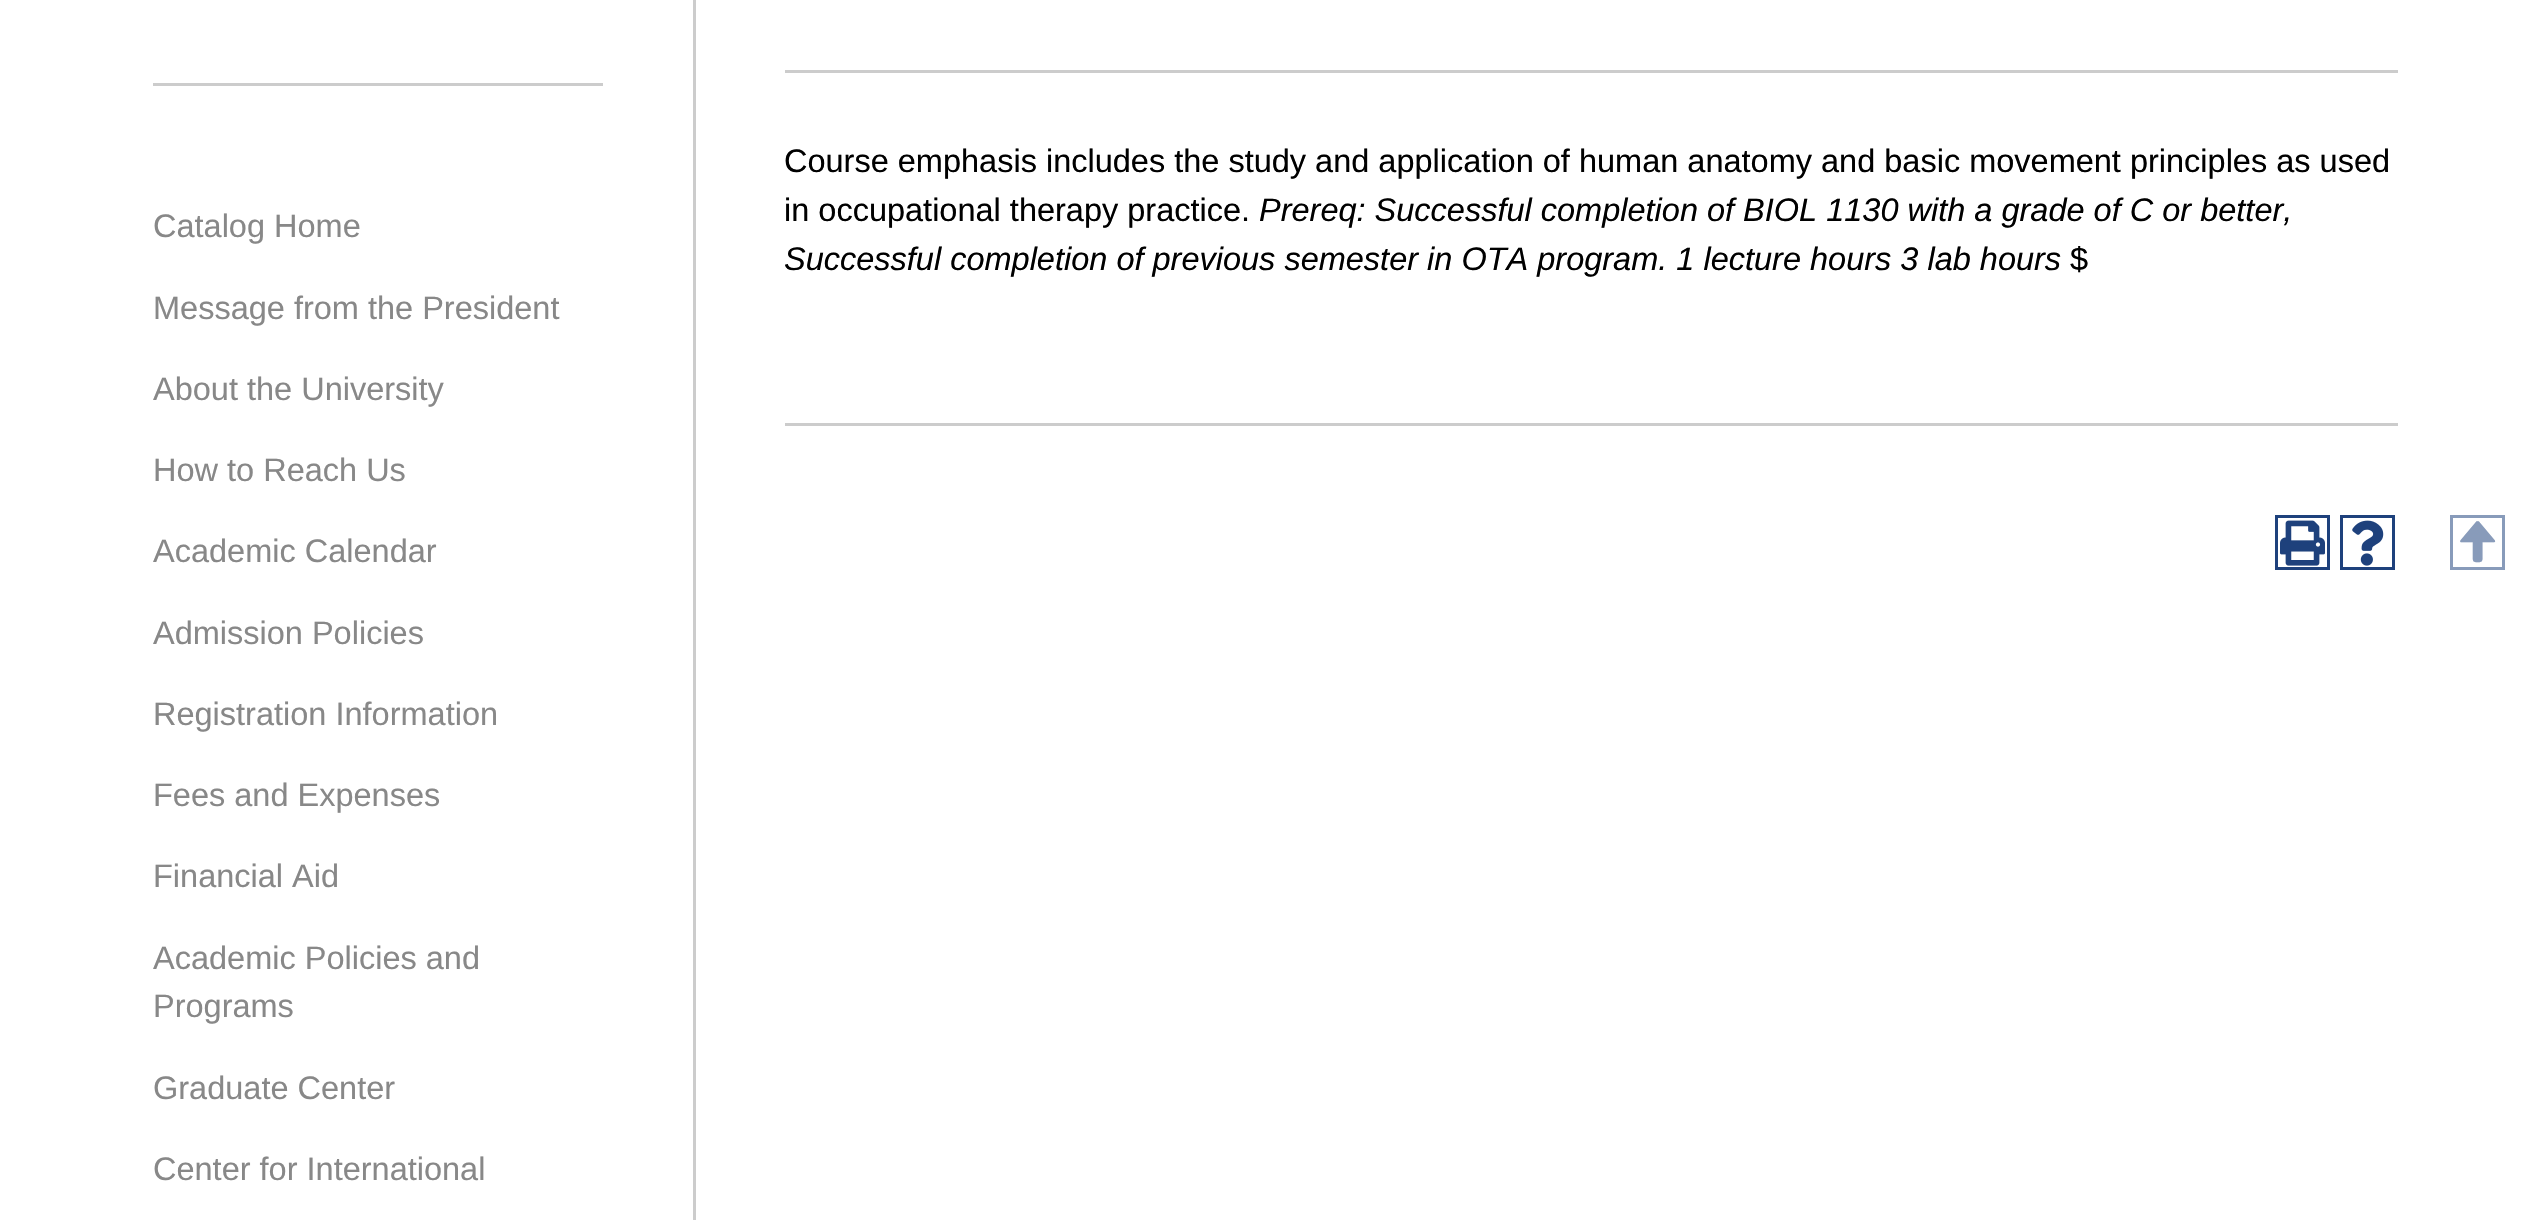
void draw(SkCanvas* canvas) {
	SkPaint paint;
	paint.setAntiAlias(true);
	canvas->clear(0xffffffff);
	paint.setColor(0xffcccccc);
	canvas->drawRect(SkRect::MakeXYWH(693, 0, 3, 1220), paint);
	canvas->drawRect(SkRect::MakeXYWH(153, 83, 450, 3), paint);
	SkFont f1(fontMgr->matchFamilyStyle("Liberation Sans", SkFontStyle::Normal()), 32.5);
	f1.setSubpixel(true);
	paint.setColor(0xff888888);
	canvas->drawString("Catalog Home", 153, 237, f1, paint);
	canvas->drawString("Message from the President", 153, 319, f1, paint);
	canvas->drawString("About the University", 153, 400, f1, paint);
	canvas->drawString("How to Reach Us", 153, 481, f1, paint);
	canvas->drawString("Academic Calendar", 153, 562, f1, paint);
	canvas->drawString("Admission Policies", 153, 644, f1, paint);
	canvas->drawString("Registration Information", 153, 725, f1, paint);
	canvas->drawString("Fees and Expenses", 153, 806, f1, paint);
	canvas->drawString("Financial Aid", 153, 887, f1, paint);
	canvas->drawString("Academic Policies and", 153, 969, f1, paint);
	canvas->drawString("Programs", 153, 1017, f1, paint);
	canvas->drawString("Graduate Center", 153, 1099, f1, paint);
	canvas->drawString("Center for International", 153, 1180, f1, paint);
	paint.setColor(0xffcccccc);
	canvas->drawRect(SkRect::MakeXYWH(785, 70, 1613, 3), paint);
	paint.setColor(0xff000000);
	canvas->drawString("Course emphasis includes the study and application of human anatomy and basic movement principles as used", 784, 172, f1, paint);
	canvas->drawString("in occupational therapy practice.", 784, 221, f1, paint);
	SkFont f2(fontMgr->matchFamilyStyle("Liberation Sans", SkFontStyle::Italic()), 32.5);
	f2.setSubpixel(true);
	canvas->drawString("Prereq: Successful completion of BIOL 1130 with a grade of C or better,", 1259, 221, f2, paint);
	canvas->drawString("Successful completion of previous semester in OTA program. 1 lecture hours 3 lab hours", 784, 270, f2, paint);
	canvas->drawString("$", 2070, 270, f1, paint);
	paint.setColor(0xffcccccc);
	canvas->drawRect(SkRect::MakeXYWH(785, 423, 1613, 3), paint);
	paint.setStroke(true);
	paint.setStrokeWidth(3);
	paint.setColor(0xff1e417c);
	canvas->drawRect(SkRect::MakeXYWH(2276.5, 516.5, 52, 52), paint);
	canvas->drawImageRect(SkImages::DeferredFromEncodedData(SkData::MakeFromFileName("img1.png")), SkRect::MakeXYWH(2280, 520, 45, 46), SkSamplingOptions());
	canvas->drawRect(SkRect::MakeXYWH(2341.5, 516.5, 52, 52), paint);
	canvas->drawImageRect(SkImages::DeferredFromEncodedData(SkData::MakeFromFileName("img2.png")), SkRect::MakeXYWH(2352, 520, 32, 46), SkSamplingOptions());
	paint.setColor(0xff889bba);
	canvas->drawRect(SkRect::MakeXYWH(2451.5, 516.5, 52, 52), paint);
	SkFont f3(fontMgr->matchFamilyStyle("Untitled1", SkFontStyle(500, SkFontStyle::kNormal_Width, SkFontStyle::kUpright_Slant)), 45);
	f3.setSubpixel(true);
	paint.setStroke(false);
	canvas->drawString("T", 2454, 555, f3, paint);
}
